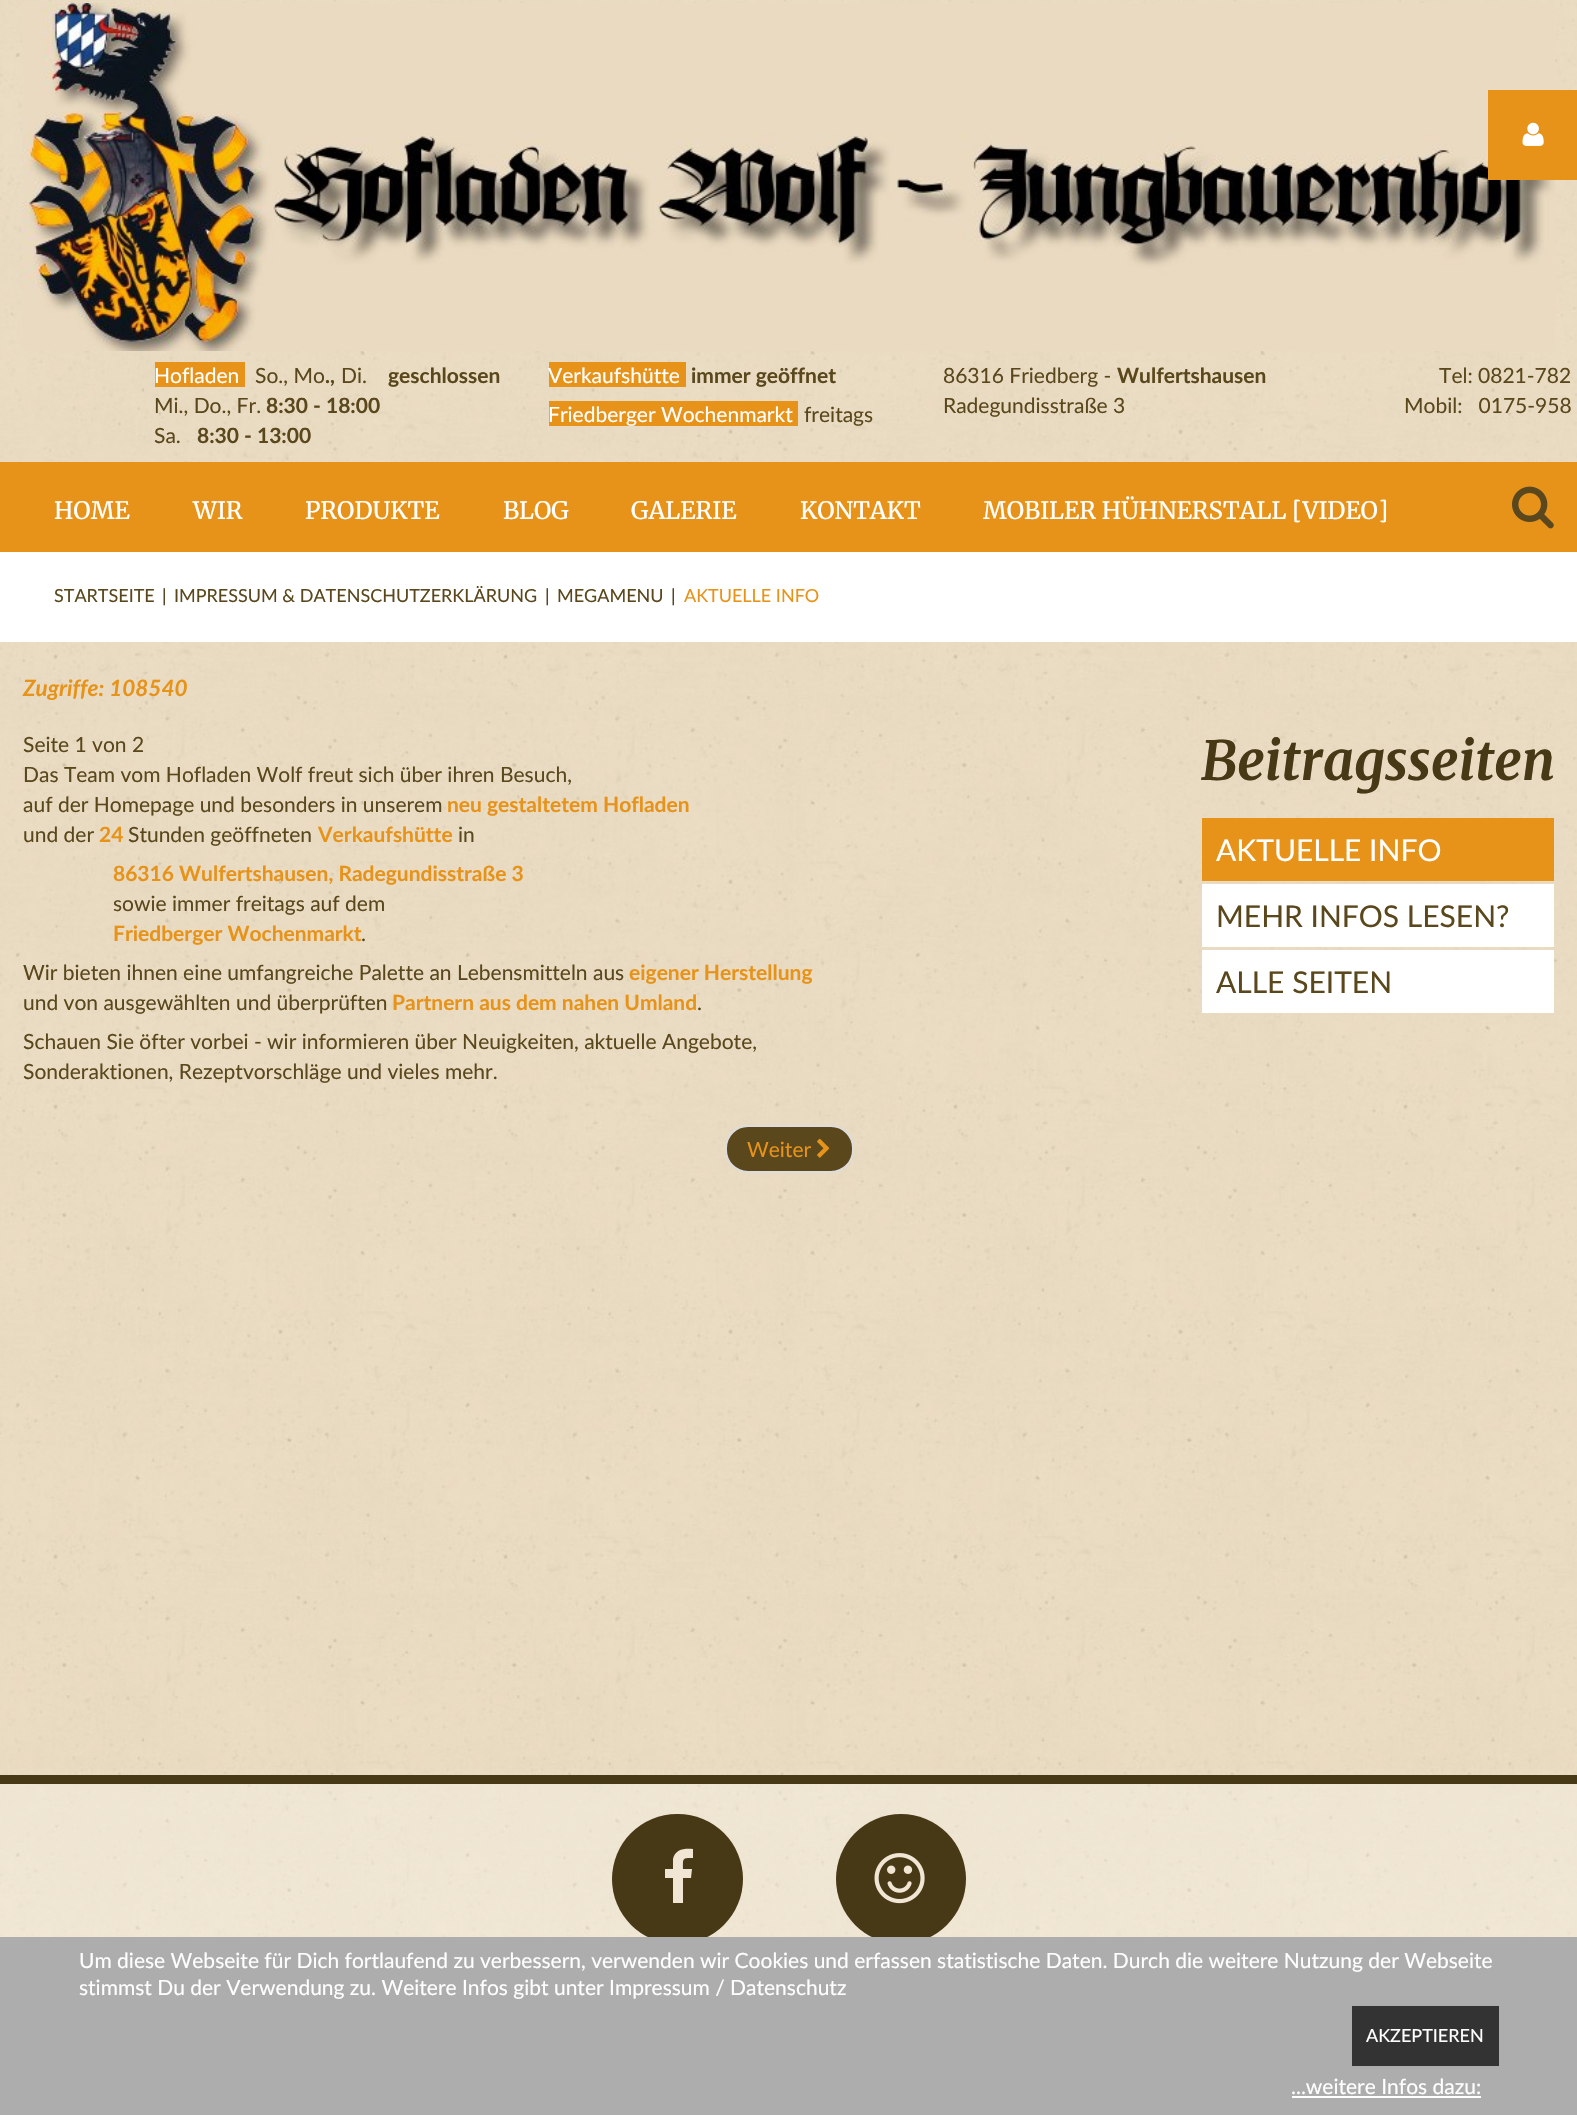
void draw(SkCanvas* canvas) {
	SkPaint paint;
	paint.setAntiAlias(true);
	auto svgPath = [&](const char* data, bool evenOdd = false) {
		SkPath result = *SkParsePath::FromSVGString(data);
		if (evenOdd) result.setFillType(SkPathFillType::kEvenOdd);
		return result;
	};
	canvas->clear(0xffffffff);
	canvas->drawImageRect(SkImages::DeferredFromEncodedData(SkData::MakeFromFileName("img1.png")), SkRect::MakeXYWH(0, 0, 1577, 1937), SkSamplingOptions());
	canvas->drawImageRect(SkImages::DeferredFromEncodedData(SkData::MakeFromFileName("img3.png")), SkRect::MakeXYWH(22, 3, 1534, 348), SkSamplingOptions());
	paint.setColor(0xffe7931a);
	canvas->drawRect(SkRect::MakeXYWH(1488, 90, 89, 90), paint);
	canvas->drawImageRect(SkImages::DeferredFromEncodedData(SkData::MakeFromFileName("img2.png")), SkRect::MakeXYWH(1522, 122, 22, 24), SkSamplingOptions());
	canvas->drawRect(SkRect::MakeXYWH(155, 362, 90, 25), paint);
	SkFont f1(fontMgr->matchFamilyStyle("Lato", SkFontStyle::Normal()), 21);
	f1.setSubpixel(true);
	paint.setColor(0xffffffff);
	canvas->drawString("Hofladen", 154, 383, f1, paint);
	paint.setColor(0xff5a471c);
	canvas->drawString("So., Mo", 255, 383, f1, paint);
	SkFont f2(fontMgr->matchFamilyStyle("Lato", SkFontStyle::Bold()), 21);
	f2.setSubpixel(true);
	canvas->drawString(".,", 325, 383, f2, paint);
	canvas->drawString("Di.", 341, 383, f1, paint);
	canvas->drawString("geschlossen", 388, 383, f2, paint);
	canvas->drawString("Mi., Do., Fr.", 154, 413, f1, paint);
	canvas->drawString("8:30 - 18:00", 266, 413, f2, paint);
	canvas->drawString("Sa.", 154, 443, f1, paint);
	canvas->drawString("8:30 - 13:00", 197, 443, f2, paint);
	paint.setColor(0xffe7931a);
	canvas->drawRect(SkRect::MakeXYWH(549, 362, 137, 25), paint);
	paint.setColor(0xffffffff);
	canvas->drawString("Verkaufshütte", 548, 383, f1, paint);
	paint.setColor(0xff5a471c);
	canvas->drawString("immer geöffnet", 691, 383, f2, paint);
	paint.setColor(0xffe7931a);
	canvas->drawRect(SkRect::MakeXYWH(549, 401, 249, 25), paint);
	paint.setColor(0xffffffff);
	canvas->drawString("Friedberger Wochenmarkt", 548, 422, f1, paint);
	paint.setColor(0xff5a471c);
	canvas->drawString("freitags", 804, 422, f1, paint);
	canvas->drawString("86316 Friedberg -", 943, 383, f1, paint);
	canvas->drawString("Wulfertshausen", 1117, 383, f2, paint);
	canvas->drawString("Radegundisstraße 3", 943, 413, f1, paint);
	canvas->drawString("Tel: 0821-782", 1439, 383, f1, paint);
	canvas->drawString("Mobil:   0175-958", 1404, 413, f1, paint);
	paint.setColor(0xffe7931a);
	canvas->drawRect(SkRect::MakeXYWH(0, 462, 1577, 90), paint);
	SkFont f3(fontMgr->matchFamilyStyle("Merriweather", SkFontStyle::Normal()), 24);
	f3.setSubpixel(true);
	paint.setColor(0xffffffff);
	canvas->drawString("HOME", 54, 519, f3, paint);
	canvas->drawString("WIR", 193, 519, f3, paint);
	canvas->drawString("PRODUKTE", 305, 519, f3, paint);
	canvas->drawString("BLOG", 503, 519, f3, paint);
	canvas->drawString("GALERIE", 631, 519, f3, paint);
	canvas->drawString("KONTAKT", 800, 519, f3, paint);
	canvas->drawString("MOBILER HÜHNERSTALL [VIDEO]", 983, 519, f3, paint);
	canvas->drawImageRect(SkImages::DeferredFromEncodedData(SkData::MakeFromFileName("img4.png")), SkRect::MakeXYWH(1512, 486, 42, 43), SkSamplingOptions());
	canvas->drawRect(SkRect::MakeXYWH(0, 552, 1577, 90), paint);
	SkFont f4(fontMgr->matchFamilyStyle("Lato", SkFontStyle::Normal()), 18);
	f4.setSubpixel(true);
	paint.setColor(0xff5a471c);
	canvas->drawString("STARTSEITE", 54, 602, f4, paint);
	paint.setColor(0xff473816);
	canvas->drawString("|", 162, 602, f4, paint);
	paint.setColor(0xff5a471c);
	canvas->drawString("IMPRESSUM & DATENSCHUTZERKLÄRUNG", 174, 602, f4, paint);
	paint.setColor(0xff473816);
	canvas->drawString("|", 545, 602, f4, paint);
	paint.setColor(0xff5a471c);
	canvas->drawString("MEGAMENU", 557, 602, f4, paint);
	paint.setColor(0xff473816);
	canvas->drawString("|", 671, 602, f4, paint);
	paint.setColor(0xffe7931a);
	canvas->drawString("AKTUELLE INFO", 684, 602, f4, paint);
	SkFont f5(fontMgr->matchFamilyStyle("Lato", SkFontStyle::BoldItalic()), 22.5);
	f5.setSubpixel(true);
	canvas->drawString("Zugriffe: 108540", 23, 696, f5, paint);
	paint.setColor(0xff5a471c);
	canvas->drawString("Seite 1 von 2", 23, 752, f1, paint);
	canvas->drawString("Das Team vom Hofladen Wolf freut sich über ihren Besuch,", 23, 782, f1, paint);
	canvas->drawString("auf der Homepage und besonders in unserem", 23, 812, f1, paint);
	paint.setColor(0xffe7931a);
	canvas->drawString("neu gestaltetem Hofladen", 447, 812, f2, paint);
	paint.setColor(0xff5a471c);
	canvas->drawString("und der", 23, 842, f1, paint);
	paint.setColor(0xffe7931a);
	canvas->drawString("24", 99, 842, f2, paint);
	paint.setColor(0xff5a471c);
	canvas->drawString("Stunden geöffneten", 128, 842, f1, paint);
	paint.setColor(0xffe7931a);
	canvas->drawString("Verkaufshütte", 318, 842, f2, paint);
	paint.setColor(0xff5a471c);
	canvas->drawString("in", 458, 842, f1, paint);
	paint.setColor(0xffe7931a);
	canvas->drawString("86316 Wulfertshausen, Radegundisstraße 3", 113, 881, f2, paint);
	paint.setColor(0xff5a471c);
	canvas->drawString("sowie immer freitags auf dem", 113, 911, f1, paint);
	paint.setColor(0xffe7931a);
	canvas->drawString("Friedberger Wochenmarkt", 113, 941, f2, paint);
	paint.setColor(0xff5a471c);
	canvas->drawString(".", 361, 941, f1, paint);
	canvas->drawString("Wir bieten ihnen eine umfangreiche Palette an Lebensmitteln aus", 23, 980, f1, paint);
	paint.setColor(0xffe7931a);
	canvas->drawString("eigener Herstellung", 629, 980, f2, paint);
	paint.setColor(0xff5a471c);
	canvas->drawString("und von ausgewählten und überprüften", 23, 1010, f1, paint);
	paint.setColor(0xffe7931a);
	canvas->drawString("Partnern aus dem nahen Umland", 392, 1010, f2, paint);
	paint.setColor(0xff5a471c);
	canvas->drawString(".", 697, 1010, f1, paint);
	canvas->drawString("Schauen Sie öfter vorbei - wir informieren über Neuigkeiten, aktuelle Angebote,", 23, 1049, f1, paint);
	canvas->drawString("Sonderaktionen, Rezeptvorschläge und vieles mehr.", 23, 1079, f1, paint);
	canvas->drawRoundRect(SkRect::MakeXYWH(726, 1126, 127, 46), 22, 22, paint);
	paint.setStroke(true);
	paint.setStrokeWidth(2);
	paint.setColor(0xffdddddd);
	canvas->drawRoundRect(SkRect::MakeXYWH(726, 1126, 127, 46), 22, 22, paint);
	paint.setStroke(false);
	paint.setColor(0xffe7931a);
	canvas->drawString("Weiter", 747, 1157, f1, paint);
	canvas->drawImageRect(SkImages::DeferredFromEncodedData(SkData::MakeFromFileName("img5.png")), SkRect::MakeXYWH(817, 1138, 13, 20), SkSamplingOptions());
	SkFont f6(fontMgr->matchFamilyStyle("Merriweather", SkFontStyle::BoldItalic()), 54);
	f6.setSubpixel(true);
	paint.setColor(0xff473816);
	canvas->drawString("Beitragsseiten", 1201, 780, f6, paint);
	paint.setColor(0xffe7931a);
	canvas->drawRect(SkRect::MakeXYWH(1202, 818, 352, 63), paint);
	SkFont f7(fontMgr->matchFamilyStyle("Lato", SkFontStyle::Normal()), 30);
	f7.setSubpixel(true);
	paint.setColor(0xffffffff);
	canvas->drawString("AKTUELLE INFO", 1216, 861, f7, paint);
	canvas->drawRect(SkRect::MakeXYWH(1202, 884, 352, 63), paint);
	paint.setColor(0xff5a471c);
	canvas->drawString("MEHR INFOS LESEN?", 1216, 927, f7, paint);
	paint.setColor(0xffffffff);
	canvas->drawRect(SkRect::MakeXYWH(1202, 950, 352, 63), paint);
	paint.setColor(0xff5a471c);
	canvas->drawString("ALLE SEITEN", 1216, 993, f7, paint);
	paint.setColor(0x4affffff);
	canvas->drawRect(SkRect::MakeXYWH(0, 1784, 1577, 153), paint);
	paint.setColor(0xff473816);
	canvas->drawRect(SkRect::MakeXYWH(0, 1775, 1577, 9), paint);
	canvas->drawRoundRect(SkRect::MakeXYWH(612, 1814, 131, 130), 65, 65, paint);
	paint.setColor(0xfff1e6d4);
	canvas->drawPath(svgPath("M693 1849V1858C682 1858 683 1858 683 1869H692L691 1878H683V1903H673V1878H665V1869H673V1859C675 1849 685 1848 693 1849Z"), paint);
	paint.setColor(0xff473816);
	canvas->drawCircle(901, 1879, 65, paint);
	canvas->drawImageRect(SkImages::DeferredFromEncodedData(SkData::MakeFromFileName("img6.png")), SkRect::MakeXYWH(874, 1853, 51, 51), SkSamplingOptions());
	paint.setColor(0xffadadad);
	canvas->drawRect(SkRect::MakeXYWH(0, 1937, 1577, 178), paint);
	paint.setColor(0xffffffff);
	canvas->drawString("Um diese Webseite für Dich fortlaufend zu verbessern, verwenden wir Cookies und erfassen statistische Daten. Durch die weitere Nutzung der Webseite", 79, 1968, f1, paint);
	canvas->drawString("stimmst Du der Verwendung zu. Weitere Infos gibt unter Impressum / Datenschutz", 79, 1995, f1, paint);
	paint.setColor(0xff333333);
	canvas->drawRect(SkRect::MakeXYWH(1352, 2006, 147, 60), paint);
	paint.setColor(0xffffffff);
	canvas->drawString("AKZEPTIEREN", 1366, 2042, f4, paint);
	canvas->drawString("...weitere Infos dazu:", 1291, 2094, f1, paint);
	canvas->drawRect(SkRect::MakeXYWH(1292, 2096, 189, 2), paint);
}
